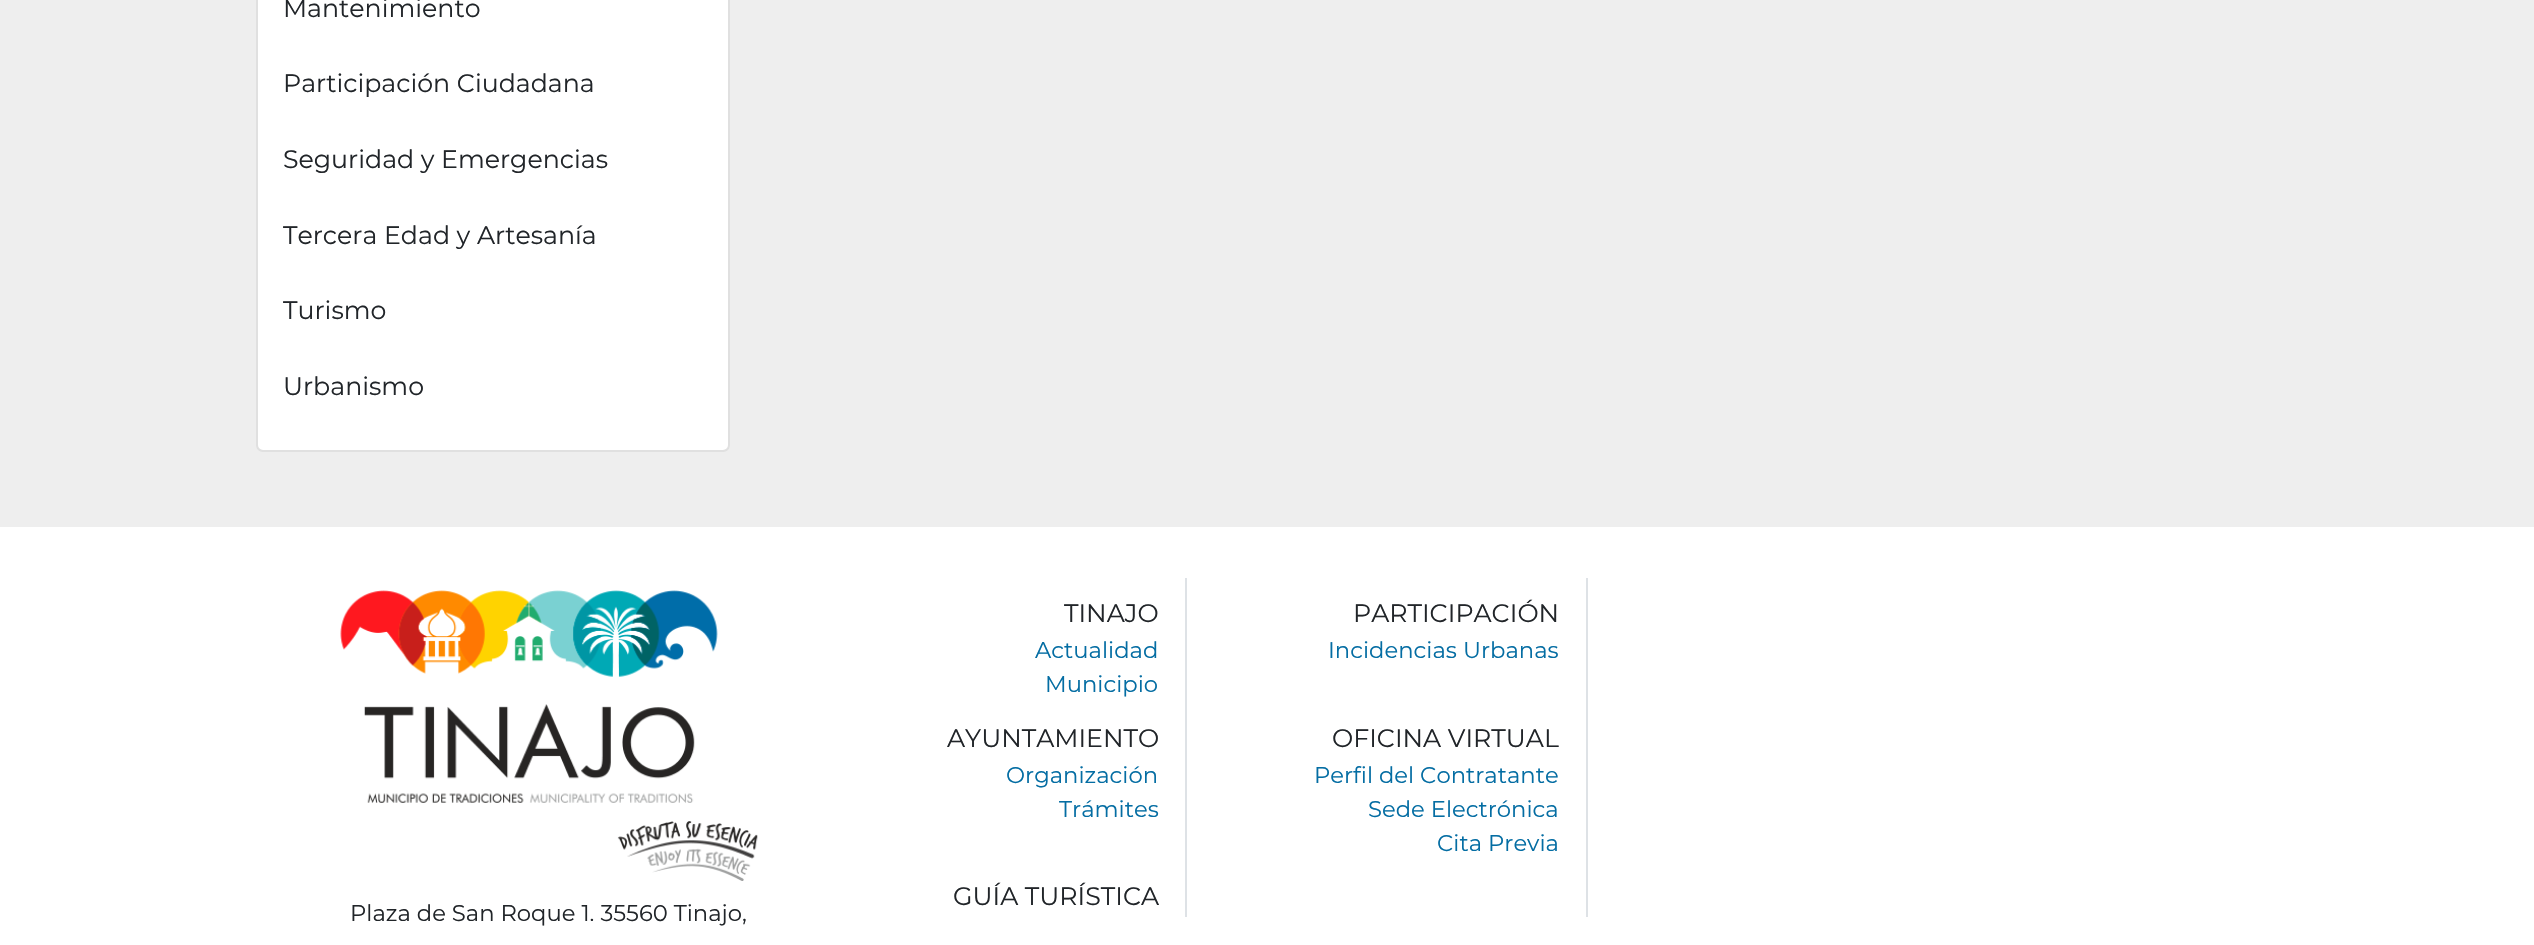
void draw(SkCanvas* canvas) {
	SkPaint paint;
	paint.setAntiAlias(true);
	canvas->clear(0xffffffff);
	paint.setColor(0xffeeeeee);
	canvas->drawRect(SkRect::MakeXYWH(0, 0, 2534, 527), paint);
	paint.setColor(0xffffffff);
	canvas->drawRoundRect(SkRect::MakeXYWH(256, -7, 474, 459), 7, 7, paint);
	paint.setStroke(true);
	paint.setStrokeWidth(2);
	paint.setColor(0x1f000000);
	canvas->drawRoundRect(SkRect::MakeXYWH(257, -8, 472, 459), 6, 6, paint);
	SkFont f1(fontMgr->matchFamilyStyle("Montserrat", SkFontStyle::Normal()), 25.25);
	f1.setSubpixel(true);
	paint.setStroke(false);
	paint.setColor(0xff212529);
	canvas->drawString("Mantenimiento", 283, 17, f1, paint);
	canvas->drawString("Participación Ciudadana", 283, 92, f1, paint);
	canvas->drawString("Seguridad y Emergencias", 283, 168, f1, paint);
	canvas->drawString("Tercera Edad y Artesanía", 283, 244, f1, paint);
	canvas->drawString("Turismo", 283, 319, f1, paint);
	canvas->drawString("Urbanismo", 283, 395, f1, paint);
	paint.setColor(0xffdee2e6);
	canvas->drawRect(SkRect::MakeXYWH(1586, 578, 2, 339), paint);
	canvas->drawRect(SkRect::MakeXYWH(1185, 578, 2, 339), paint);
	paint.setColor(0xff212529);
	canvas->drawString("TINAJO", 1064, 622, f1, paint);
	SkFont f2(fontMgr->matchFamilyStyle("Montserrat", SkFontStyle::Normal()), 22.7);
	f2.setSubpixel(true);
	paint.setColor(0xff046da3);
	canvas->drawString("Actualidad", 1035, 658, f2, paint);
	canvas->drawString("Municipio", 1045, 692, f2, paint);
	paint.setColor(0xff212529);
	canvas->drawString("PARTICIPACIÓN", 1353, 622, f1, paint);
	paint.setColor(0xff046da3);
	canvas->drawString("Incidencias Urbanas", 1328, 658, f2, paint);
	paint.setColor(0xff212529);
	canvas->drawString("AYUNTAMIENTO", 947, 747, f1, paint);
	paint.setColor(0xff046da3);
	canvas->drawString("Organización", 1006, 783, f2, paint);
	canvas->drawString("Trámites", 1059, 817, f2, paint);
	paint.setColor(0xff212529);
	canvas->drawString("OFICINA VIRTUAL", 1332, 747, f1, paint);
	paint.setColor(0xff046da3);
	canvas->drawString("Perfil del Contratante", 1314, 783, f2, paint);
	canvas->drawString("Sede Electrónica", 1368, 817, f2, paint);
	canvas->drawString("Cita Previa", 1437, 851, f2, paint);
	paint.setColor(0xff212529);
	canvas->drawString("GUÍA TURÍSTICA", 953, 905, f1, paint);
	canvas->drawImageRect(SkImages::DeferredFromEncodedData(SkData::MakeFromFileName("img1.png")), SkRect::MakeXYWH(340, 590, 418, 291), SkSamplingOptions());
	canvas->drawString("Plaza de San Roque 1. 35560 Tinajo,", 350, 921, f2, paint);
}
